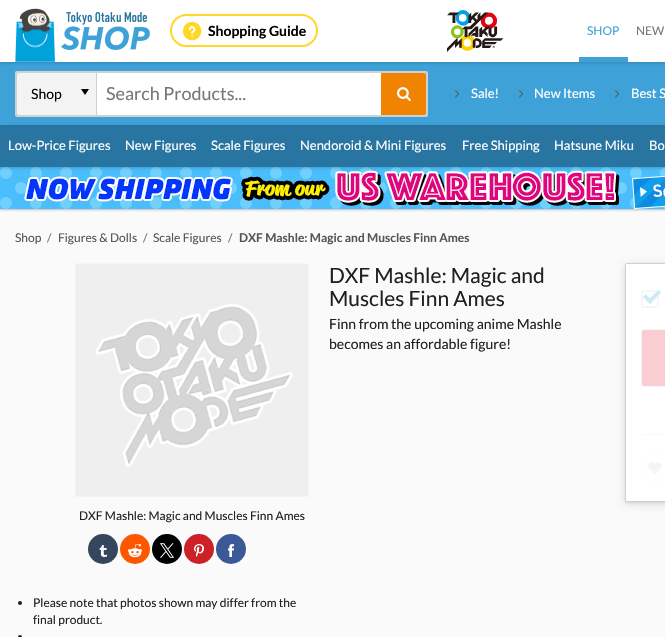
void draw(SkCanvas* canvas) {
	SkPaint paint;
	paint.setAntiAlias(true);
	auto svgPath = [&](const char* data, bool evenOdd = false) {
		SkPath result = *SkParsePath::FromSVGString(data);
		if (evenOdd) result.setFillType(SkPathFillType::kEvenOdd);
		return result;
	};
	canvas->clear(0xfffafafa);
	paint.setColor(0xff3ea2d9);
	canvas->drawRect(SkRect::MakeXYWH(0, 62, 665, 63), paint);
	paint.setColor(0x2e000000);
	paint.setMaskFilter(SkMaskFilter::MakeBlur(kNormal_SkBlurStyle, 1.5));
	canvas->drawRect(SkRect::MakeXYWH(0, 1, 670, 62), paint);
	paint.setMaskFilter(nullptr);
	paint.setColor(0xffffffff);
	canvas->drawRect(SkRect::MakeXYWH(0, 0, 665, 62), paint);
	canvas->drawImageRect(SkImages::DeferredFromEncodedData(SkData::MakeFromFileName("img1.png")), SkRect::MakeXYWH(15, 8, 40, 54), SkSamplingOptions());
	canvas->drawImageRect(SkImages::DeferredFromEncodedData(SkData::MakeFromFileName("img2.png")), SkRect::MakeXYWH(61, 12, 89, 38), SkSamplingOptions());
	paint.setStroke(true);
	paint.setStrokeWidth(2);
	paint.setColor(0xffffd826);
	canvas->drawRoundRect(SkRect::MakeXYWH(171, 15, 146, 31), 15.5, 15.5, paint);
	canvas->drawImageRect(SkImages::DeferredFromEncodedData(SkData::MakeFromFileName("img3.png")), SkRect::MakeXYWH(182, 21, 20, 20), SkSamplingOptions());
	SkFont f1(fontMgr->matchFamilyStyle("Lato", SkFontStyle::Bold()), 14);
	f1.setSubpixel(true);
	paint.setStroke(false);
	paint.setColor(0xff000000);
	canvas->drawString("Shopping Guide", 208, 36, f1, paint);
	canvas->drawImageRect(SkImages::DeferredFromEncodedData(SkData::MakeFromFileName("img4.png")), SkRect::MakeXYWH(447, 10, 57, 42), SkSamplingOptions());
	paint.setColor(0xff3ea2d9);
	canvas->drawRect(SkRect::MakeXYWH(579, 57, 49, 5), paint);
	SkFont f2(fontMgr->matchFamilyStyle("Lato", SkFontStyle::Normal()), 12);
	f2.setSubpixel(true);
	canvas->drawString("SHOP", 587, 35, f2, paint);
	paint.setColor(0xff777777);
	canvas->drawString("NEW", 636, 35, f2, paint);
	paint.setColor(0xffd0d0d0);
	canvas->drawRoundRect(SkRect::MakeXYWH(16, 72, 411, 44), 1, 1, paint);
	paint.setStroke(true);
	canvas->drawRoundRect(SkRect::MakeXYWH(16, 72, 411, 44), 1, 1, paint);
	paint.setStroke(false);
	paint.setColor(0xfff3f3f3);
	canvas->drawPath(svgPath("M19 73H97V115H19C18 115 17 114 17 113V75C17 74 18 73 19 73Z"), paint);
	paint.setColor(0xffd0d0d0);
	canvas->drawRect(SkRect::MakeXYWH(96, 73, 1, 42), paint);
	SkFont f3(fontMgr->matchFamilyStyle("Lato", SkFontStyle::Normal()), 14);
	f3.setSubpixel(true);
	paint.setColor(0xff000000);
	canvas->drawString("Shop", 31, 99, f3, paint);
	canvas->drawPath(svgPath("M81 89H89L85 95Z"), paint);
	paint.setColor(0xffffffff);
	canvas->drawRect(SkRect::MakeXYWH(97, 73, 284, 42), paint);
	SkFont f4(fontMgr->matchFamilyStyle("Lato", SkFontStyle::Normal()), 18);
	f4.setSubpixel(true);
	paint.setColor(0xff777777);
	canvas->drawString("Search Products...", 106, 100, f4, paint);
	paint.setColor(0xfff08300);
	canvas->drawPath(svgPath("M381 73H424C425 73 426 74 426 75V113C426 114 425 115 424 115H381Z"), paint);
	canvas->drawImageRect(SkImages::DeferredFromEncodedData(SkData::MakeFromFileName("img5.png")), SkRect::MakeXYWH(397, 87, 14, 15), SkSamplingOptions());
	canvas->drawImageRect(SkImages::DeferredFromEncodedData(SkData::MakeFromFileName("img6.png")), SkRect::MakeXYWH(455, 90, 5, 8), SkSamplingOptions());
	SkFont f5(fontMgr->matchFamilyStyle("Lato", SkFontStyle::Normal()), 13);
	f5.setSubpixel(true);
	paint.setColor(0xffffffff);
	canvas->drawString("Sale!", 471, 98, f5, paint);
	canvas->drawImageRect(SkImages::DeferredFromEncodedData(SkData::MakeFromFileName("img6.png")), SkRect::MakeXYWH(519, 90, 5, 8), SkSamplingOptions());
	canvas->drawString("New Items", 534, 98, f5, paint);
	canvas->drawImageRect(SkImages::DeferredFromEncodedData(SkData::MakeFromFileName("img6.png")), SkRect::MakeXYWH(615, 90, 5, 8), SkSamplingOptions());
	canvas->drawString("Best S", 631, 98, f5, paint);
	paint.setColor(0x3d000000);
	paint.setMaskFilter(SkMaskFilter::MakeBlur(kNormal_SkBlurStyle, 1));
	canvas->drawRect(SkRect::MakeXYWH(0, 168, 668, 42), paint);
	paint.setMaskFilter(nullptr);
	canvas->drawImageRect(SkImages::DeferredFromEncodedData(SkData::MakeFromFileName("img7.png")), SkRect::MakeXYWH(0, 167, 665, 42), SkSamplingOptions());
	paint.setColor(0x2e000000);
	paint.setMaskFilter(SkMaskFilter::MakeBlur(kNormal_SkBlurStyle, 1.5));
	canvas->drawRect(SkRect::MakeXYWH(0, 126, 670, 42), paint);
	paint.setMaskFilter(nullptr);
	paint.setColor(0xff2775a0);
	canvas->drawRect(SkRect::MakeXYWH(0, 125, 665, 42), paint);
	paint.setColor(0xffffffff);
	canvas->drawString("Low-Price Figures", 8, 150, f5, paint);
	canvas->drawString("New Figures", 125, 150, f5, paint);
	canvas->drawString("Scale Figures", 211, 150, f5, paint);
	canvas->drawString("Nendoroid & Mini Figures", 300, 150, f5, paint);
	canvas->drawString("Free Shipping", 462, 150, f5, paint);
	canvas->drawString("Hatsune Miku", 554, 150, f5, paint);
	canvas->drawString("Bo", 649, 150, f5, paint);
	paint.setColor(0xff555555);
	canvas->drawString("Shop", 15, 242, f2, paint);
	paint.setColor(0xff777777);
	canvas->drawString("/", 47, 242, f2, paint);
	paint.setColor(0xff555555);
	canvas->drawString("Figures & Dolls", 58, 242, f2, paint);
	paint.setColor(0xff777777);
	canvas->drawString("/", 143, 242, f2, paint);
	paint.setColor(0xff555555);
	canvas->drawString("Scale Figures", 153, 242, f2, paint);
	paint.setColor(0xff777777);
	canvas->drawString("/", 228, 242, f2, paint);
	SkFont f6(fontMgr->matchFamilyStyle("Lato", SkFontStyle::Bold()), 12);
	f6.setSubpixel(true);
	paint.setColor(0xff555555);
	canvas->drawString("DXF Mashle: Magic and Muscles Finn Ames", 239, 242, f6, paint);
	SkFont f7(fontMgr->matchFamilyStyle("Lato", SkFontStyle::Normal()), 21);
	f7.setSubpixel(true);
	paint.setColor(0xff202020);
	canvas->drawString("DXF Mashle: Magic and", 329, 283, f7, paint);
	canvas->drawString("Muscles Finn Ames", 329, 306, f7, paint);
	canvas->drawString("Finn from the upcoming anime Mashle", 329, 329, f3, paint);
	canvas->drawString("becomes an affordable figure!", 329, 349, f3, paint);
	canvas->drawImageRect(SkImages::DeferredFromEncodedData(SkData::MakeFromFileName("img8.png")), SkRect::MakeXYWH(75, 263, 234, 234), SkSamplingOptions());
	canvas->drawString("DXF Mashle: Magic and Muscles Finn Ames", 79, 520, f2, paint);
	paint.setColor(0xff36465d);
	canvas->drawCircle(103, 549, 15, paint);
	canvas->drawImageRect(SkImages::DeferredFromEncodedData(SkData::MakeFromFileName("img9.png")), SkRect::MakeXYWH(99, 545, 8, 12), SkSamplingOptions());
	paint.setColor(0xffff5700);
	canvas->drawCircle(135, 549, 15, paint);
	canvas->drawImageRect(SkImages::DeferredFromEncodedData(SkData::MakeFromFileName("img10.png")), SkRect::MakeXYWH(128, 544, 14, 14), SkSamplingOptions());
	paint.setColor(0xff000000);
	canvas->drawCircle(167, 549, 15, paint);
	canvas->drawImageRect(SkImages::DeferredFromEncodedData(SkData::MakeFromFileName("img11.png")), SkRect::MakeXYWH(160, 543, 14, 15), SkSamplingOptions());
	paint.setColor(0xffcc2127);
	canvas->drawCircle(199, 549, 15, paint);
	canvas->drawImageRect(SkImages::DeferredFromEncodedData(SkData::MakeFromFileName("img12.png")), SkRect::MakeXYWH(194, 544, 10, 13), SkSamplingOptions());
	paint.setColor(0xff3b5998);
	canvas->drawCircle(231, 549, 15, paint);
	canvas->drawImageRect(SkImages::DeferredFromEncodedData(SkData::MakeFromFileName("img13.png")), SkRect::MakeXYWH(228, 544, 6, 13), SkSamplingOptions());
	paint.setColor(0xff202020);
	canvas->drawCircle(20, 603, 2, paint);
	canvas->drawString("Please note that photos shown may differ from the", 33, 607, f2, paint);
	canvas->drawString("final product.", 33, 624, f2, paint);
	canvas->drawCircle(20, 637, 2, paint);
	paint.setColor(0x1f000000);
	paint.setMaskFilter(SkMaskFilter::MakeBlur(kNormal_SkBlurStyle, 4));
	canvas->drawRoundRect(SkRect::MakeXYWH(625, 265, 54, 239), 2, 2, paint);
	paint.setMaskFilter(nullptr);
	paint.setColor(0x14000000);
	paint.setMaskFilter(SkMaskFilter::MakeBlur(kNormal_SkBlurStyle, 1));
	canvas->drawRoundRect(SkRect::MakeXYWH(625, 264, 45, 239), 2, 2, paint);
	paint.setMaskFilter(nullptr);
	paint.setColor(0xffffffff);
	canvas->drawRoundRect(SkRect::MakeXYWH(625.5, 263.5, 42, 238), 1.5, 1.5, paint);
	paint.setStroke(true);
	paint.setStrokeWidth(1);
	paint.setColor(0xffd0d0d0);
	canvas->drawRoundRect(SkRect::MakeXYWH(625.5, 263.5, 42, 238), 1.5, 1.5, paint);
	paint.setStrokeWidth(2);
	canvas->drawRoundRect(SkRect::MakeXYWH(642, 291, 16, 16), 1, 1, paint);
	paint.setStroke(false);
	paint.setColor(0xff0094c8);
	canvas->drawPath(svgPath("M647 301L658.5 290L661 292.5L650 304Z"), paint);
	canvas->drawPath(svgPath("M643 297L645.5 294L652.5 301L650 304Z"), paint);
	paint.setColor(0xfff8f8f8);
	canvas->drawRoundRect(SkRect::MakeXYWH(641.5, 329.5, 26, 57), 1.5, 1.5, paint);
	paint.setStroke(true);
	paint.setStrokeWidth(1);
	paint.setColor(0xffd0d0d0);
	canvas->drawRoundRect(SkRect::MakeXYWH(641.5, 329.5, 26, 57), 1.5, 1.5, paint);
	paint.setStroke(false);
	paint.setColor(0xffe2041b);
	canvas->drawRoundRect(SkRect::MakeXYWH(642.5, 330.5, 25, 55), 1.5, 1.5, paint);
	paint.setStroke(true);
	canvas->drawRoundRect(SkRect::MakeXYWH(642.5, 330.5, 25, 55), 1.5, 1.5, paint);
	paint.setStroke(false);
	paint.setColor(0xffdedfdf);
	canvas->drawRect(SkRect::MakeXYWH(641, 434, 24, 1), paint);
	paint.setStroke(true);
	paint.setColor(0xffeeeeee);
	canvas->drawCircle(655, 468, 13.5, paint);
	canvas->drawImageRect(SkImages::DeferredFromEncodedData(SkData::MakeFromFileName("img14.png")), SkRect::MakeXYWH(648, 462, 14, 12), SkSamplingOptions());
	paint.setStroke(false);
	paint.setColor(0xccffffff);
	canvas->drawRect(SkRect::MakeXYWH(626, 264, 39, 237), paint);
}
